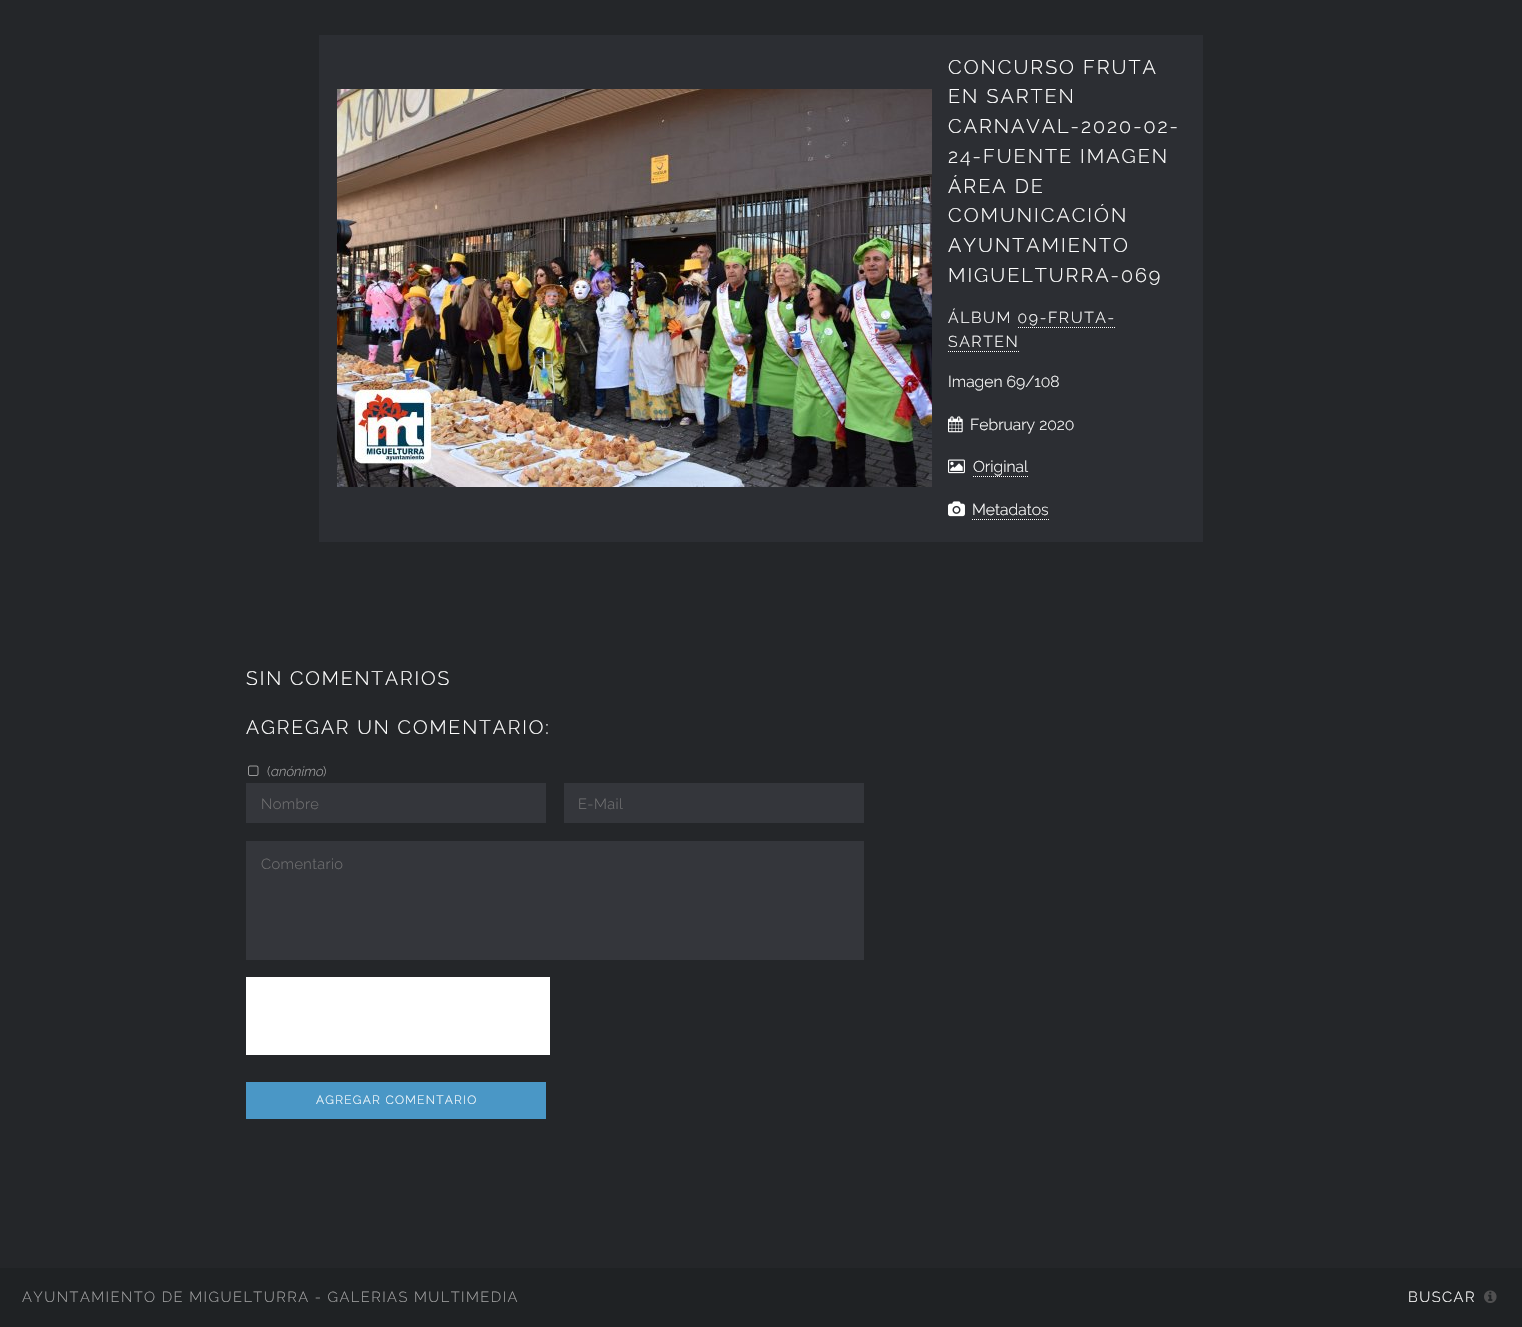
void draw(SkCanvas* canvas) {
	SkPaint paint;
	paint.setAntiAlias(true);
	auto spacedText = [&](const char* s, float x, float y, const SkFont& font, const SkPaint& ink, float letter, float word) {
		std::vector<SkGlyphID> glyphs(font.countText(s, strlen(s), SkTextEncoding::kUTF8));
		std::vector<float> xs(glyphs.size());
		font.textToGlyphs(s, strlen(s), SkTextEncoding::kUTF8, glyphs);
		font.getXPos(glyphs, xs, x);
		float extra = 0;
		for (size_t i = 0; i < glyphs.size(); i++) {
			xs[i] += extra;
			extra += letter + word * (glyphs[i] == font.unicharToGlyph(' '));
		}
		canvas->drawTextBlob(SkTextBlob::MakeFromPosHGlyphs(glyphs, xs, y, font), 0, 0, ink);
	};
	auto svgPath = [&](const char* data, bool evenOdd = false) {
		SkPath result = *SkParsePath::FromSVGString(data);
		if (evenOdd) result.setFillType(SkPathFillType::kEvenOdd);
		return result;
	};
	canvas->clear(0xff242629);
	paint.setStroke(true);
	paint.setStrokeWidth(18);
	paint.setColor(0xff2c2e33);
	canvas->drawRect(SkRect::MakeXYWH(328, 44, 866, 489), paint);
	paint.setStroke(false);
	canvas->drawRect(SkRect::MakeXYWH(337, 53, 848, 471), paint);
	canvas->drawImageRect(SkImages::DeferredFromEncodedData(SkData::MakeFromFileName("img1.png")), SkRect::MakeXYWH(337, 89, 595, 398), SkSamplingOptions());
	SkFont f1(fontMgr->matchFamilyStyle("Raleway", SkFontStyle(300, SkFontStyle::kNormal_Width, SkFontStyle::kUpright_Slant)), 19.75);
	f1.setSubpixel(true);
	paint.setColor(0xffffffff);
	spacedText("CONCURSO FRUTA", 948, 74, f1, paint, 2, 0);
	spacedText("EN SARTEN", 948, 103, f1, paint, 2, 0);
	spacedText("CARNAVAL-2020-02-", 948, 133, f1, paint, 2, 0);
	spacedText("24-FUENTE IMAGEN", 948, 163, f1, paint, 2, 0);
	spacedText("ÁREA DE", 948, 193, f1, paint, 2, 0);
	spacedText("COMUNICACIÓN", 948, 222, f1, paint, 2, 0);
	spacedText("AYUNTAMIENTO", 948, 252, f1, paint, 2, 0);
	spacedText("MIGUELTURRA-069", 948, 282, f1, paint, 2, 0);
	SkFont f2(fontMgr->matchFamilyStyle("Raleway", SkFontStyle(300, SkFontStyle::kNormal_Width, SkFontStyle::kUpright_Slant)), 15.75);
	f2.setSubpixel(true);
	spacedText("ÁLBUM 09-FRUTA-", 948, 323, f2, paint, 1.6, 0);
	spacedText("SARTEN", 948, 347, f2, paint, 1.6, 0);
	paint.setStroke(true);
	paint.setStrokeWidth(1);
	paint.setPathEffect(SkDashPathEffect::Make({{1, 1}}, 0));
	canvas->drawPath(svgPath("M1018 327.5H1116"), paint);
	paint.setPathEffect(nullptr);
	paint.setPathEffect(SkDashPathEffect::Make({{1, 1}}, 0));
	canvas->drawPath(svgPath("M948 351.5H1020"), paint);
	paint.setPathEffect(nullptr);
	paint.setStroke(false);
	canvas->drawString("Imagen 69/108", 948, 387, f2, paint);
	canvas->drawImageRect(SkImages::DeferredFromEncodedData(SkData::MakeFromFileName("img2.png")), SkRect::MakeXYWH(948, 416, 15, 17), SkSamplingOptions());
	canvas->drawString("February 2020", 970, 430, f2, paint);
	canvas->drawImageRect(SkImages::DeferredFromEncodedData(SkData::MakeFromFileName("img3.png")), SkRect::MakeXYWH(948, 459, 17, 15), SkSamplingOptions());
	canvas->drawString("Original", 973, 472, f2, paint);
	paint.setStroke(true);
	paint.setPathEffect(SkDashPathEffect::Make({{1, 1}}, 0));
	canvas->drawPath(svgPath("M973 476.5H1028"), paint);
	paint.setPathEffect(nullptr);
	canvas->drawImageRect(SkImages::DeferredFromEncodedData(SkData::MakeFromFileName("img4.png")), SkRect::MakeXYWH(948, 501, 17, 16), SkSamplingOptions());
	paint.setStroke(false);
	canvas->drawString("Metadatos", 972, 515, f2, paint);
	paint.setStroke(true);
	paint.setPathEffect(SkDashPathEffect::Make({{1, 1}}, 0));
	canvas->drawPath(svgPath("M972 519.5H1049"), paint);
	paint.setPathEffect(nullptr);
	SkFont f3(fontMgr->matchFamilyStyle("Raleway", SkFontStyle(300, SkFontStyle::kNormal_Width, SkFontStyle::kUpright_Slant)), 19.4);
	f3.setSubpixel(true);
	paint.setStroke(false);
	spacedText("SIN COMENTARIOS", 246, 685, f3, paint, 1.9, 0);
	spacedText("AGREGAR UN COMENTARIO:", 246, 734, f3, paint, 1.9, 0);
	canvas->drawImageRect(SkImages::DeferredFromEncodedData(SkData::MakeFromFileName("img5.png")), SkRect::MakeXYWH(248, 765, 11, 11), SkSamplingOptions());
	SkFont f4(fontMgr->matchFamilyStyle("Raleway", SkFontStyle(300, SkFontStyle::kNormal_Width, SkFontStyle::kUpright_Slant)), 13.5);
	f4.setSubpixel(true);
	paint.setColor(0xffa0a0a1);
	canvas->drawString("(", 267, 776, f4, paint);
	SkFont f5(fontMgr->matchFamilyStyle("Raleway", SkFontStyle(300, SkFontStyle::kNormal_Width, SkFontStyle::kItalic_Slant)), 13.5);
	f5.setSubpixel(true);
	canvas->drawString("anónimo", 271, 776, f5, paint);
	canvas->drawString(")", 323, 776, f4, paint);
	paint.setColor(0xff34363b);
	canvas->drawRect(SkRect::MakeXYWH(246, 783, 300, 40), paint);
	SkFont f6(fontMgr->matchFamilyStyle("Raleway", SkFontStyle(300, SkFontStyle::kNormal_Width, SkFontStyle::kUpright_Slant)), 14.65);
	f6.setSubpixel(true);
	paint.setColor(0xff707071);
	spacedText("Nombre", 261, 809, f6, paint, 0.4, 0);
	paint.setColor(0xff34363b);
	canvas->drawRect(SkRect::MakeXYWH(564, 783, 300, 40), paint);
	paint.setColor(0xff707071);
	spacedText("E-Mail", 578, 809, f6, paint, 0.4, 0);
	paint.setColor(0xff34363b);
	canvas->drawRect(SkRect::MakeXYWH(246, 841, 618, 119), paint);
	paint.setColor(0xff707071);
	spacedText("Comentario", 261, 869, f6, paint, 0.4, 0);
	paint.setColor(0xffffffff);
	canvas->drawRect(SkRect::MakeXYWH(246, 977, 304, 78), paint);
	paint.setColor(0xff4a97c6);
	canvas->drawRect(SkRect::MakeXYWH(246, 1082, 300, 37), paint);
	SkFont f7(fontMgr->matchFamilyStyle("Raleway", SkFontStyle(300, SkFontStyle::kNormal_Width, SkFontStyle::kUpright_Slant)), 12);
	f7.setSubpixel(true);
	paint.setColor(0xffffffff);
	spacedText("AGREGAR COMENTARIO", 316, 1104, f7, paint, 1.25, 0);
	paint.setColor(0xff1f2224);
	canvas->drawRect(SkRect::MakeXYWH(0, 1268, 1522, 59), paint);
	canvas->save();
	canvas->clipRect(SkRect::MakeXYWH(22, 1290, 498, 15));
	paint.setColor(0xffa0a0a1);
	spacedText("AYUNTAMIENTO DE MIGUELTURRA - GALERÍAS MULTIMEDIA", 22, 1302, f6, paint, 1.45, 0);
	canvas->restore();
	paint.setColor(0xffffffff);
	spacedText("BUSCAR", 1408, 1302, f6, paint, 1.45, 0);
	canvas->drawImageRect(SkImages::DeferredFromEncodedData(SkData::MakeFromFileName("img6.png")), SkRect::MakeXYWH(1484, 1290, 13, 13), SkSamplingOptions());
}
